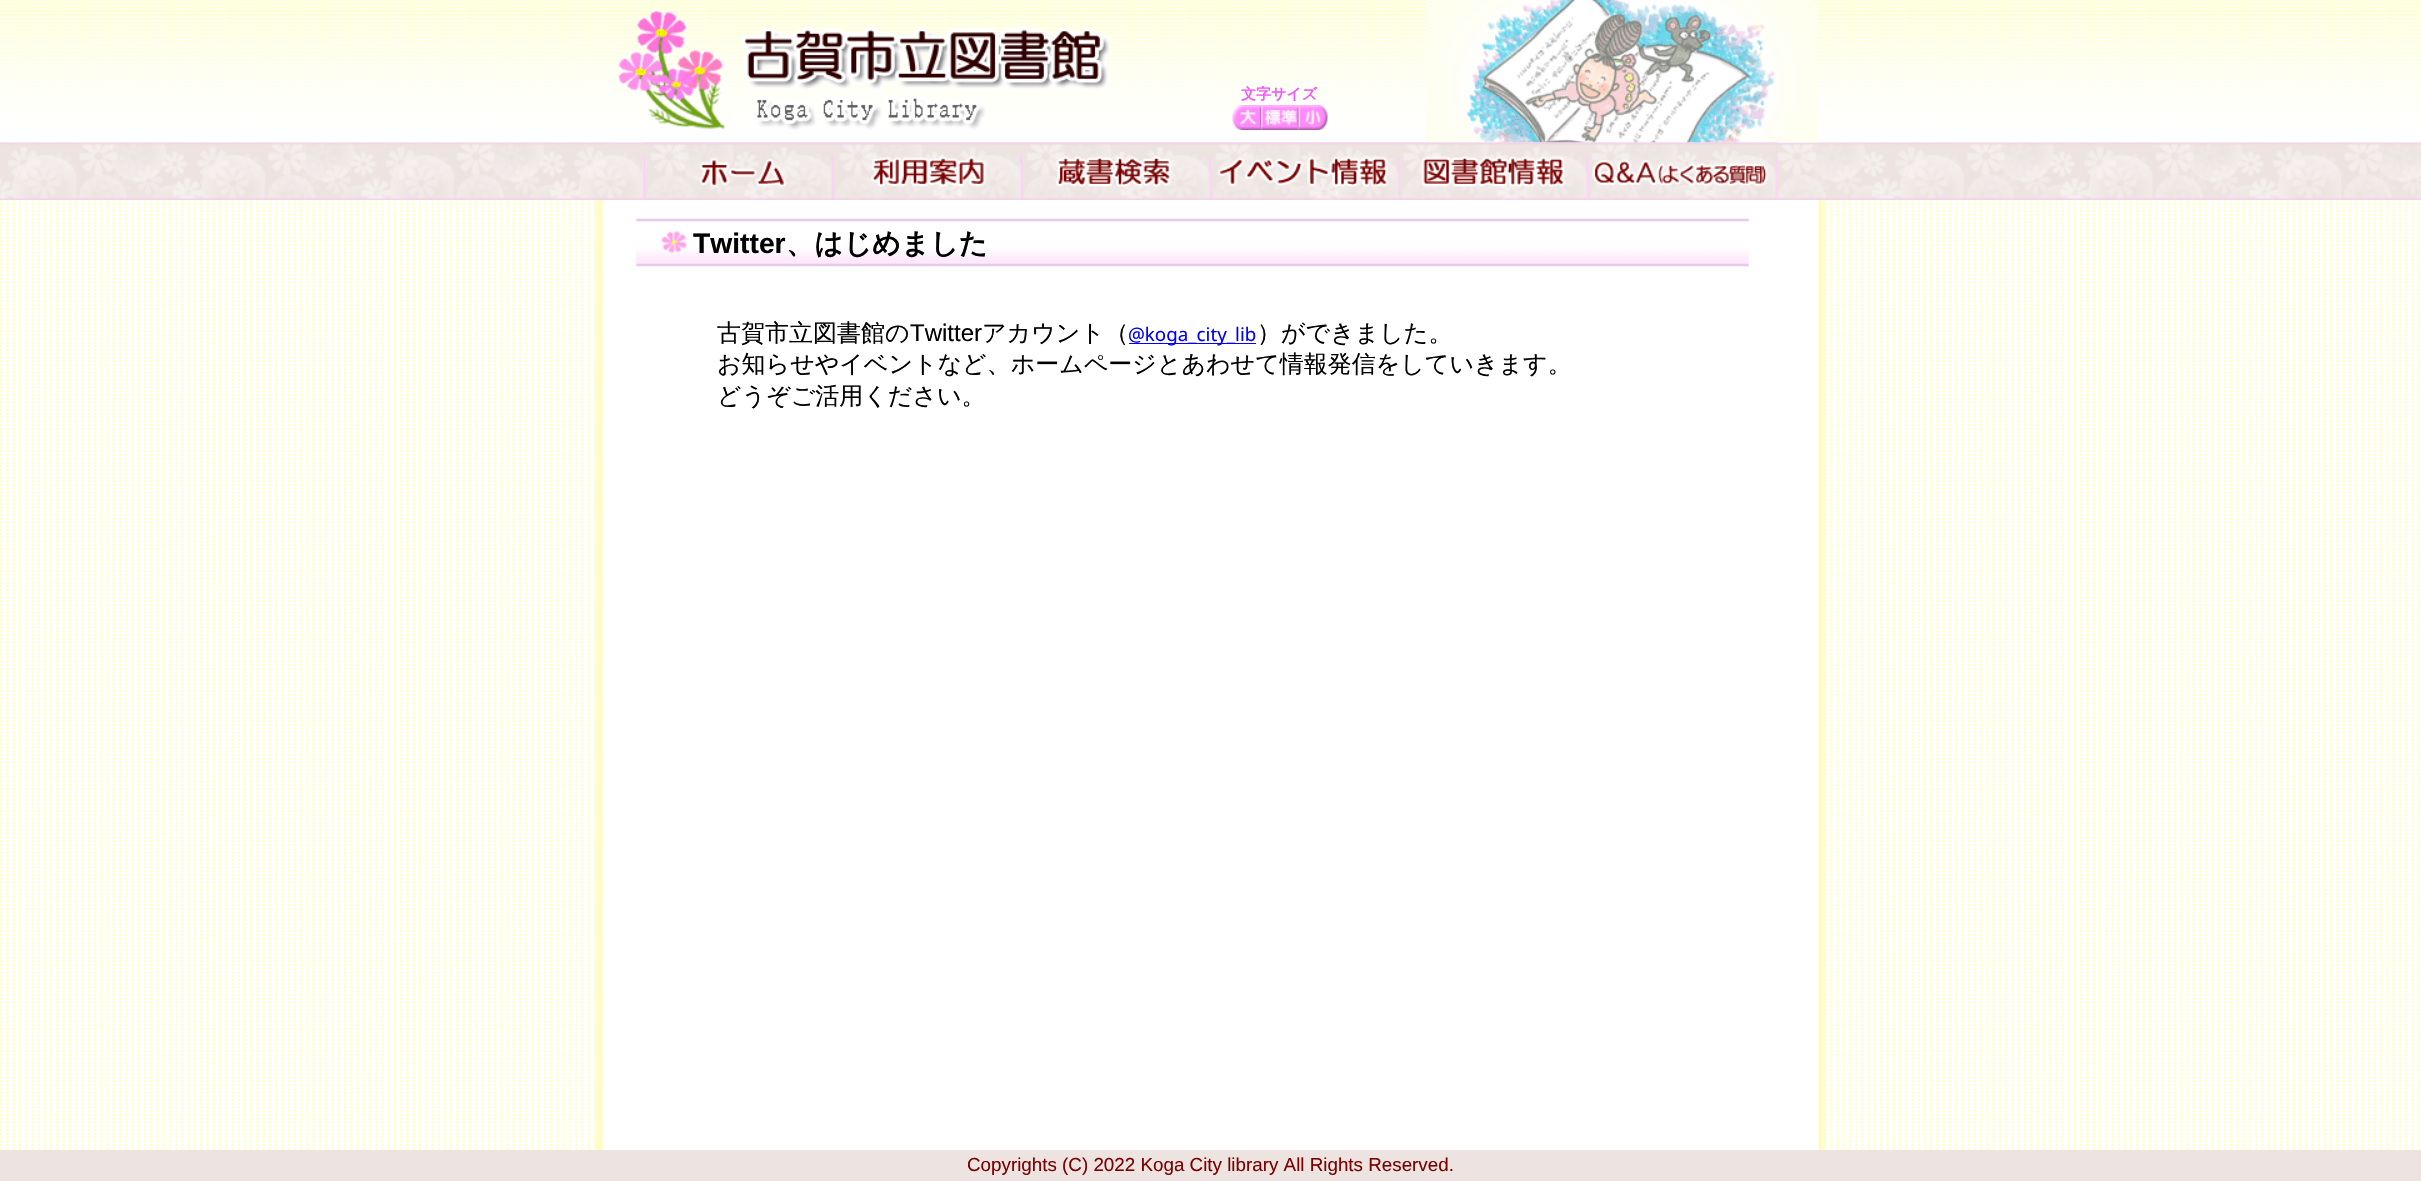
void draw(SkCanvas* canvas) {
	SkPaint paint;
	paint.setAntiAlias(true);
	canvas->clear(0xffffffff);
	canvas->drawImageRect(SkImages::DeferredFromEncodedData(SkData::MakeFromFileName("img1.png")), SkRect::MakeXYWH(0, 142, 2421, 1008), SkSamplingOptions());
	canvas->drawImageRect(SkImages::DeferredFromEncodedData(SkData::MakeFromFileName("img2.png")), SkRect::MakeXYWH(0, 0, 2421, 143), SkSamplingOptions());
	canvas->drawImageRect(SkImages::DeferredFromEncodedData(SkData::MakeFromFileName("img9.png")), SkRect::MakeXYWH(0, 142, 2421, 58), SkSamplingOptions());
	canvas->drawImageRect(SkImages::DeferredFromEncodedData(SkData::MakeFromFileName("img3.png")), SkRect::MakeXYWH(1425, 0, 393, 143), SkSamplingOptions());
	canvas->drawImageRect(SkImages::DeferredFromEncodedData(SkData::MakeFromFileName("img4.png")), SkRect::MakeXYWH(617, 10, 108, 120), SkSamplingOptions());
	canvas->drawImageRect(SkImages::DeferredFromEncodedData(SkData::MakeFromFileName("img5.png")), SkRect::MakeXYWH(741, 26, 369, 104), SkSamplingOptions());
	SkFont f1(fontMgr->matchFamilyStyle("WenQuanYi Zen Hei", SkFontStyle::Bold()), 15);
	f1.setSubpixel(true);
	paint.setColor(0xfff254fc);
	canvas->drawString("文字サイズ", 1241, 99, f1, paint);
	canvas->drawImageRect(SkImages::DeferredFromEncodedData(SkData::MakeFromFileName("img6.png")), SkRect::MakeXYWH(1232, 105, 30, 25), SkSamplingOptions());
	canvas->drawImageRect(SkImages::DeferredFromEncodedData(SkData::MakeFromFileName("img7.png")), SkRect::MakeXYWH(1261, 105, 38, 25), SkSamplingOptions());
	canvas->drawImageRect(SkImages::DeferredFromEncodedData(SkData::MakeFromFileName("img8.png")), SkRect::MakeXYWH(1298, 105, 30, 25), SkSamplingOptions());
	canvas->drawImageRect(SkImages::DeferredFromEncodedData(SkData::MakeFromFileName("img10.png")), SkRect::MakeXYWH(642, 142, 189, 57), SkSamplingOptions());
	canvas->drawImageRect(SkImages::DeferredFromEncodedData(SkData::MakeFromFileName("img11.png")), SkRect::MakeXYWH(831, 142, 189, 57), SkSamplingOptions());
	canvas->drawImageRect(SkImages::DeferredFromEncodedData(SkData::MakeFromFileName("img12.png")), SkRect::MakeXYWH(1020, 142, 189, 57), SkSamplingOptions());
	canvas->drawImageRect(SkImages::DeferredFromEncodedData(SkData::MakeFromFileName("img13.png")), SkRect::MakeXYWH(1208, 142, 190, 58), SkSamplingOptions());
	canvas->drawImageRect(SkImages::DeferredFromEncodedData(SkData::MakeFromFileName("img14.png")), SkRect::MakeXYWH(1397, 142, 189, 58), SkSamplingOptions());
	canvas->drawImageRect(SkImages::DeferredFromEncodedData(SkData::MakeFromFileName("img15.png")), SkRect::MakeXYWH(1586, 142, 189, 58), SkSamplingOptions());
	canvas->drawImageRect(SkImages::DeferredFromEncodedData(SkData::MakeFromFileName("img16.png")), SkRect::MakeXYWH(1775, 142, 3, 56), SkSamplingOptions());
	canvas->drawImageRect(SkImages::DeferredFromEncodedData(SkData::MakeFromFileName("img17.png")), SkRect::MakeXYWH(636, 218, 1113, 49), SkSamplingOptions());
	canvas->drawImageRect(SkImages::DeferredFromEncodedData(SkData::MakeFromFileName("img18.png")), SkRect::MakeXYWH(661, 231, 26, 22), SkSamplingOptions());
	SkFont f2(fontMgr->matchFamilyStyle("Liberation Sans", SkFontStyle::Bold()), 28.25);
	f2.setSubpixel(true);
	paint.setColor(0xff000000);
	canvas->drawString("Twitter", 693, 253, f2, paint);
	SkFont f3(fontMgr->matchFamilyStyle("WenQuanYi Zen Hei", SkFontStyle::Bold()), 28.25);
	f3.setSubpixel(true);
	canvas->drawString("、はじめました", 786, 253, f3, paint);
	SkFont f4(fontMgr->matchFamilyStyle("WenQuanYi Zen Hei", SkFontStyle(500, SkFontStyle::kNormal_Width, SkFontStyle::kUpright_Slant)), 24);
	f4.setSubpixel(true);
	canvas->drawString("古賀市立図書館の", 717, 341, f4, paint);
	SkFont f5(fontMgr->matchFamilyStyle("Liberation Sans", SkFontStyle::Normal()), 24);
	f5.setSubpixel(true);
	canvas->drawString("Twitter", 910, 341, f5, paint);
	canvas->drawString("アカウント（", 982, 341, f4, paint);
	paint.setColor(0xff0000ff);
	canvas->drawRect(SkRect::MakeXYWH(1129, 343, 127, 1), paint);
	SkFont f6(fontMgr->matchFamilyStyle("Noto Sans", SkFontStyle::Normal()), 18.75);
	f6.setSubpixel(true);
	canvas->drawString("@koga_city_lib", 1128, 341, f6, paint);
	paint.setColor(0xff000000);
	canvas->drawString("）ができました。", 1257, 341, f4, paint);
	canvas->drawString("お知らせやイベントなど、ホームページとあわせて情報発信をしていきます。", 717, 372, f4, paint);
	canvas->drawString("どうぞご活用ください。", 717, 404, f4, paint);
	paint.setColor(0xffede4e1);
	canvas->drawRect(SkRect::MakeXYWH(0, 1150, 2421, 31), paint);
	SkFont f7(fontMgr->matchFamilyStyle("Liberation Sans", SkFontStyle::Normal()), 18.8);
	f7.setSubpixel(true);
	paint.setColor(0xff7a0101);
	canvas->drawString("Copyrights (C) 2022 Koga City library All Rights Reserved.", 967, 1171, f7, paint);
}
